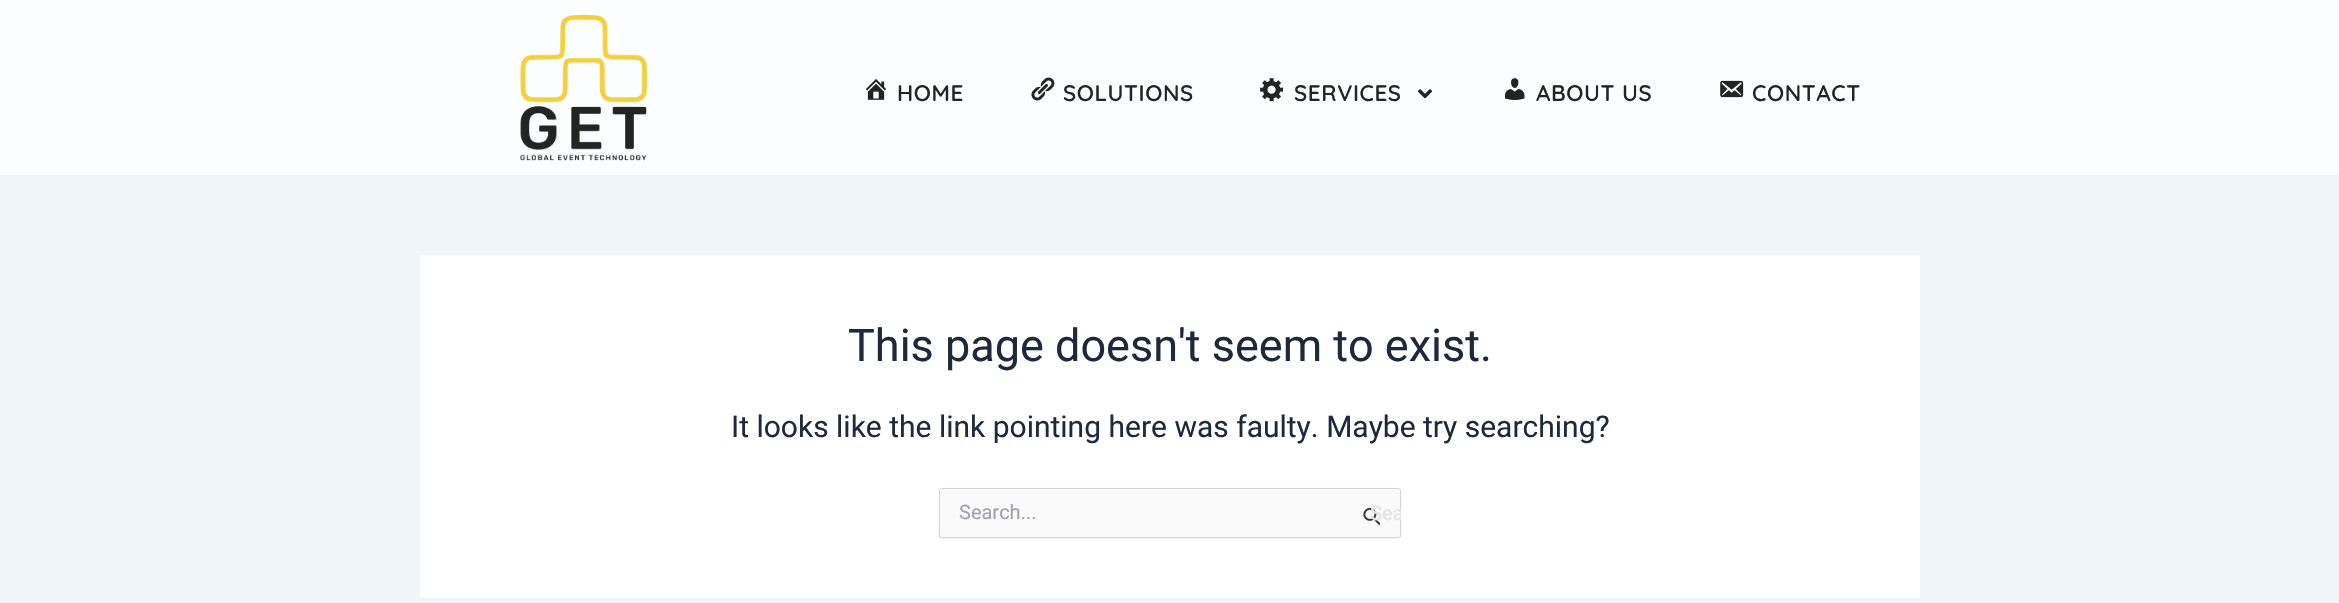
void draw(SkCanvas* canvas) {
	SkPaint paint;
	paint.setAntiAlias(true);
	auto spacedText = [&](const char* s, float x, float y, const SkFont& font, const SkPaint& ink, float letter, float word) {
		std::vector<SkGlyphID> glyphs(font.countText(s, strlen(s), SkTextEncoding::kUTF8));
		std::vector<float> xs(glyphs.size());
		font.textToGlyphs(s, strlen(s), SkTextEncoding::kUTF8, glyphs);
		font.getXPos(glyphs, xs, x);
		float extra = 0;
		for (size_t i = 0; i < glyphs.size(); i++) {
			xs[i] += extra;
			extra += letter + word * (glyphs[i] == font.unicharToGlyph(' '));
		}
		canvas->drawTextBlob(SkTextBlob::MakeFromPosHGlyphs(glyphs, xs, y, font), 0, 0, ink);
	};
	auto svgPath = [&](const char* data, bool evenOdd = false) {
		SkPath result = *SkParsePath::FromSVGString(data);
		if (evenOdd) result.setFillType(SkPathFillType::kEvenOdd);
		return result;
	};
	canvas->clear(0xfff0f5fa);
	paint.setColor(0xfffcfdfe);
	canvas->drawRect(SkRect::MakeXYWH(0, 0, 2339, 175), paint);
	canvas->drawImageRect(SkImages::DeferredFromEncodedData(SkData::MakeFromFileName("img1.png")), SkRect::MakeXYWH(520, 14, 127, 147), SkSamplingOptions());
	canvas->drawImageRect(SkImages::DeferredFromEncodedData(SkData::MakeFromFileName("img2.png")), SkRect::MakeXYWH(865, 79, 22, 21), SkSamplingOptions());
	SkFont f1(fontMgr->matchFamilyStyle("Quicksand", SkFontStyle(600, SkFontStyle::kNormal_Width, SkFontStyle::kUpright_Slant)), 22.5);
	f1.setSubpixel(true);
	paint.setColor(0xff232523);
	spacedText("HOME", 897, 101, f1, paint, 0.6, 0);
	canvas->drawImageRect(SkImages::DeferredFromEncodedData(SkData::MakeFromFileName("img3.png")), SkRect::MakeXYWH(1031, 77, 24, 24), SkSamplingOptions());
	spacedText("SOLUTIONS", 1063, 101, f1, paint, 0.6, 0);
	canvas->drawImageRect(SkImages::DeferredFromEncodedData(SkData::MakeFromFileName("img4.png")), SkRect::MakeXYWH(1260, 78, 24, 24), SkSamplingOptions());
	spacedText("SERVICES", 1294, 101, f1, paint, 0.6, 0);
	canvas->drawImageRect(SkImages::DeferredFromEncodedData(SkData::MakeFromFileName("img5.png")), SkRect::MakeXYWH(1418, 89, 14, 10), SkSamplingOptions());
	canvas->drawImageRect(SkImages::DeferredFromEncodedData(SkData::MakeFromFileName("img6.png")), SkRect::MakeXYWH(1505, 78, 20, 22), SkSamplingOptions());
	spacedText("ABOUT US", 1536, 101, f1, paint, 0.6, 0);
	canvas->drawImageRect(SkImages::DeferredFromEncodedData(SkData::MakeFromFileName("img7.png")), SkRect::MakeXYWH(1720, 80, 24, 18), SkSamplingOptions());
	spacedText("CONTACT", 1752, 101, f1, paint, 0.6, 0);
	paint.setColor(0xffffffff);
	canvas->drawRect(SkRect::MakeXYWH(420, 255, 1500, 343), paint);
	SkFont f2(fontMgr->matchFamilyStyle("Roboto", SkFontStyle::Normal()), 45);
	f2.setSubpixel(true);
	paint.setColor(0xff1e293b);
	canvas->drawString("This page doesn't seem to exist.", 848, 361, f2, paint);
	SkFont f3(fontMgr->matchFamilyStyle("Roboto", SkFontStyle::Normal()), 30);
	f3.setSubpixel(true);
	canvas->drawString("It looks like the link pointing here was faulty. Maybe try searching?", 731, 437, f3, paint);
	paint.setColor(0x0d000000);
	paint.setMaskFilter(SkMaskFilter::MakeBlur(kNormal_SkBlurStyle, 1));
	canvas->drawRoundRect(SkRect::MakeXYWH(939, 489, 462, 50), 2.5, 2.5, paint);
	paint.setMaskFilter(nullptr);
	paint.setColor(0xfffafafa);
	canvas->drawRoundRect(SkRect::MakeXYWH(939.5, 488.5, 461, 49), 2, 2, paint);
	paint.setStroke(true);
	paint.setStrokeWidth(1);
	paint.setColor(0xffd1d5db);
	canvas->drawRoundRect(SkRect::MakeXYWH(939.5, 488.5, 461, 49), 2, 2, paint);
	SkFont f4(fontMgr->matchFamilyStyle("Roboto", SkFontStyle::Normal()), 20);
	f4.setSubpixel(true);
	paint.setStroke(false);
	paint.setColor(0xff9ca3af);
	canvas->drawString("Search...", 959, 519, f4, paint);
	canvas->drawImageRect(SkImages::DeferredFromEncodedData(SkData::MakeFromFileName("img8.png")), SkRect::MakeXYWH(1363, 507, 17, 19), SkSamplingOptions());
	canvas->save();
	canvas->clipPath(svgPath("M1347.5 488H1398.5C1400 488 1401 489 1401 490.5V537.5C1401 539 1400 540 1398.5 540H1347.5C1346 540 1345 539 1345 537.5V490.5C1345 489 1346 488 1347.5 488Z"), true);
	SkFont f5(fontMgr->matchFamilyStyle("Roboto", SkFontStyle(500, SkFontStyle::kNormal_Width, SkFontStyle::kUpright_Slant)), 20);
	f5.setSubpixel(true);
	paint.setColor(0xffe6e6e7);
	canvas->drawString("Sea", 1370, 520, f5, paint);
	canvas->restore();
}
